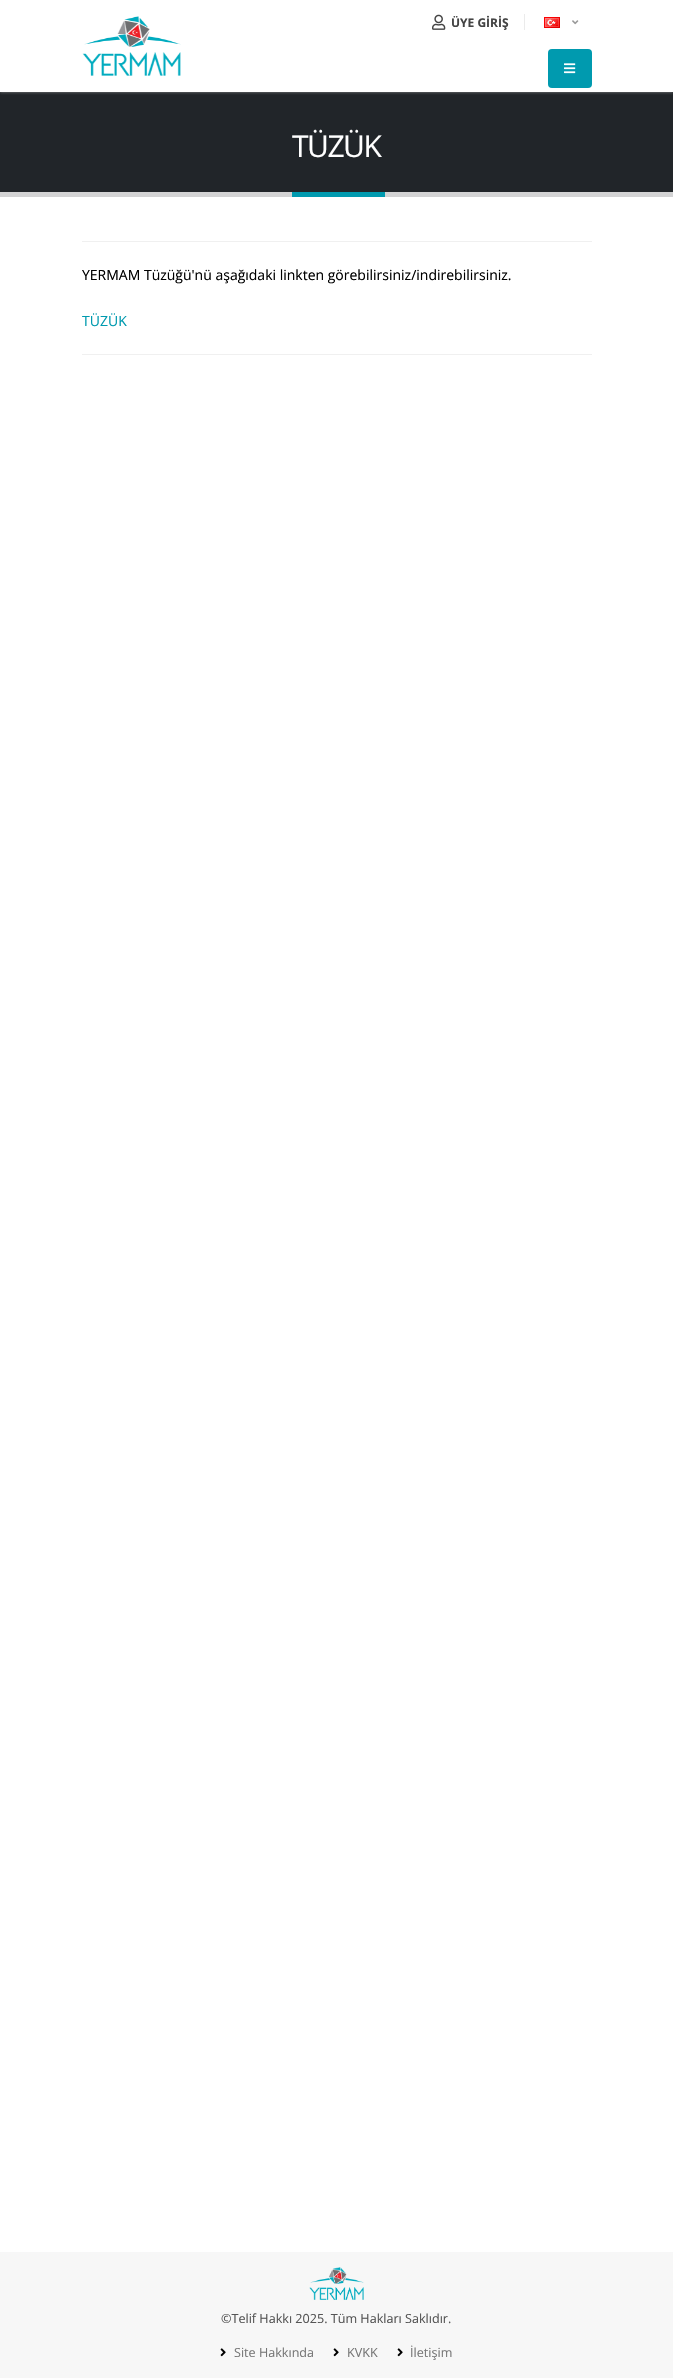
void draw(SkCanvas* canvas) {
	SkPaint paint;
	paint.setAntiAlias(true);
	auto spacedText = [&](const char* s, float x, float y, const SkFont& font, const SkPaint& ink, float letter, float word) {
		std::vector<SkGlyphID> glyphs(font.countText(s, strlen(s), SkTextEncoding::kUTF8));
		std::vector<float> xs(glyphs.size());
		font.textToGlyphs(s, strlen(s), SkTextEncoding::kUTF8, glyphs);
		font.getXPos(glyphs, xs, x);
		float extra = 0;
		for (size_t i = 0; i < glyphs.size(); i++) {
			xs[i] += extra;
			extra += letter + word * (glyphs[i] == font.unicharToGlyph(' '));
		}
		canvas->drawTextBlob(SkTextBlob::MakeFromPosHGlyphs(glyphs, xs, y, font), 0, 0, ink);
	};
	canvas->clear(0xffffffff);
	paint.setColor(0xff212529);
	canvas->drawRect(SkRect::MakeXYWH(0, 92, 673, 100), paint);
	canvas->save();
	canvas->clipRect(SkRect::MakeXYWH(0, 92, 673, 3));
	paint.setColor(0x80eaeaea);
	paint.setMaskFilter(SkMaskFilter::MakeBlur(kNormal_SkBlurStyle, 1.5));
	canvas->drawRect(SkRect::MakeXYWH(0, 0, 673, 92), paint);
	paint.setMaskFilter(nullptr);
	canvas->restore();
	canvas->drawImageRect(SkImages::DeferredFromEncodedData(SkData::MakeFromFileName("img1.png")), SkRect::MakeXYWH(82, 16, 99, 60), SkSamplingOptions());
	canvas->drawImageRect(SkImages::DeferredFromEncodedData(SkData::MakeFromFileName("img2.png")), SkRect::MakeXYWH(432, 14, 14, 16), SkSamplingOptions());
	SkFont f1(fontMgr->matchFamilyStyle("Open Sans", SkFontStyle::Bold()), 12);
	f1.setSubpixel(true);
	paint.setColor(0xff444444);
	canvas->drawString("ÜYE GİRİŞ", 451, 27, f1, paint);
	paint.setColor(0xffebebeb);
	canvas->drawRect(SkRect::MakeXYWH(524, 14, 1, 16), paint);
	canvas->drawImageRect(SkImages::DeferredFromEncodedData(SkData::MakeFromFileName("img3.png")), SkRect::MakeXYWH(544, 17, 16, 11), SkSamplingOptions());
	canvas->drawImageRect(SkImages::DeferredFromEncodedData(SkData::MakeFromFileName("img4.png")), SkRect::MakeXYWH(572, 20, 7, 5), SkSamplingOptions());
	paint.setColor(0xff009aaf);
	canvas->drawRoundRect(SkRect::MakeXYWH(548, 49, 44, 39), 4, 4, paint);
	canvas->drawImageRect(SkImages::DeferredFromEncodedData(SkData::MakeFromFileName("img5.png")), SkRect::MakeXYWH(564, 63, 12, 11), SkSamplingOptions());
	SkFont f2(fontMgr->matchFamilyStyle("Open Sans", SkFontStyle::Normal()), 30);
	f2.setSubpixel(true);
	paint.setColor(0xffffffff);
	spacedText("TÜZÜK", 292, 157, f2, paint, -1.5, 0);
	paint.setColor(0xffd3d3d4);
	canvas->drawRect(SkRect::MakeXYWH(0, 192, 673, 5), paint);
	paint.setColor(0xff009aaf);
	canvas->drawRect(SkRect::MakeXYWH(292, 192, 93, 5), paint);
	paint.setColor(0xfff0f0f0);
	canvas->drawRect(SkRect::MakeXYWH(82, 241, 510, 1), paint);
	SkFont f3(fontMgr->matchFamilyStyle("Open Sans", SkFontStyle::Normal()), 14);
	f3.setSubpixel(true);
	paint.setColor(0xff000000);
	canvas->drawString("YERMAM Tüzüğü'nü aşağıdaki linkten görebilirsiniz/indirebilirsiniz.", 82, 280, f3, paint);
	paint.setColor(0xff009aaf);
	canvas->drawString("TÜZÜK", 82, 326, f3, paint);
	paint.setColor(0xfff0f0f0);
	canvas->drawRect(SkRect::MakeXYWH(82, 354, 510, 1), paint);
	paint.setColor(0xfff7f7f7);
	canvas->drawRect(SkRect::MakeXYWH(0, 2252, 673, 126), paint);
	canvas->drawImageRect(SkImages::DeferredFromEncodedData(SkData::MakeFromFileName("img6.png")), SkRect::MakeXYWH(309, 2267, 55, 33), SkSamplingOptions());
	SkFont f4(fontMgr->matchFamilyStyle("Open Sans", SkFontStyle::Normal()), 12.6);
	f4.setSubpixel(true);
	paint.setColor(0xff555555);
	canvas->drawString("©Telif Hakkı 2025. Tüm Hakları Saklıdır.", 221, 2323, f4, paint);
	canvas->drawImageRect(SkImages::DeferredFromEncodedData(SkData::MakeFromFileName("img7.png")), SkRect::MakeXYWH(220, 2348, 6, 9), SkSamplingOptions());
	paint.setColor(0xff777777);
	canvas->drawString("Site Hakkında", 234, 2357, f4, paint);
	canvas->drawImageRect(SkImages::DeferredFromEncodedData(SkData::MakeFromFileName("img7.png")), SkRect::MakeXYWH(333, 2348, 6, 9), SkSamplingOptions());
	canvas->drawString("KVKK", 347, 2357, f4, paint);
	canvas->drawImageRect(SkImages::DeferredFromEncodedData(SkData::MakeFromFileName("img7.png")), SkRect::MakeXYWH(397, 2348, 6, 9), SkSamplingOptions());
	canvas->drawString("İletişim", 410, 2357, f4, paint);
}
